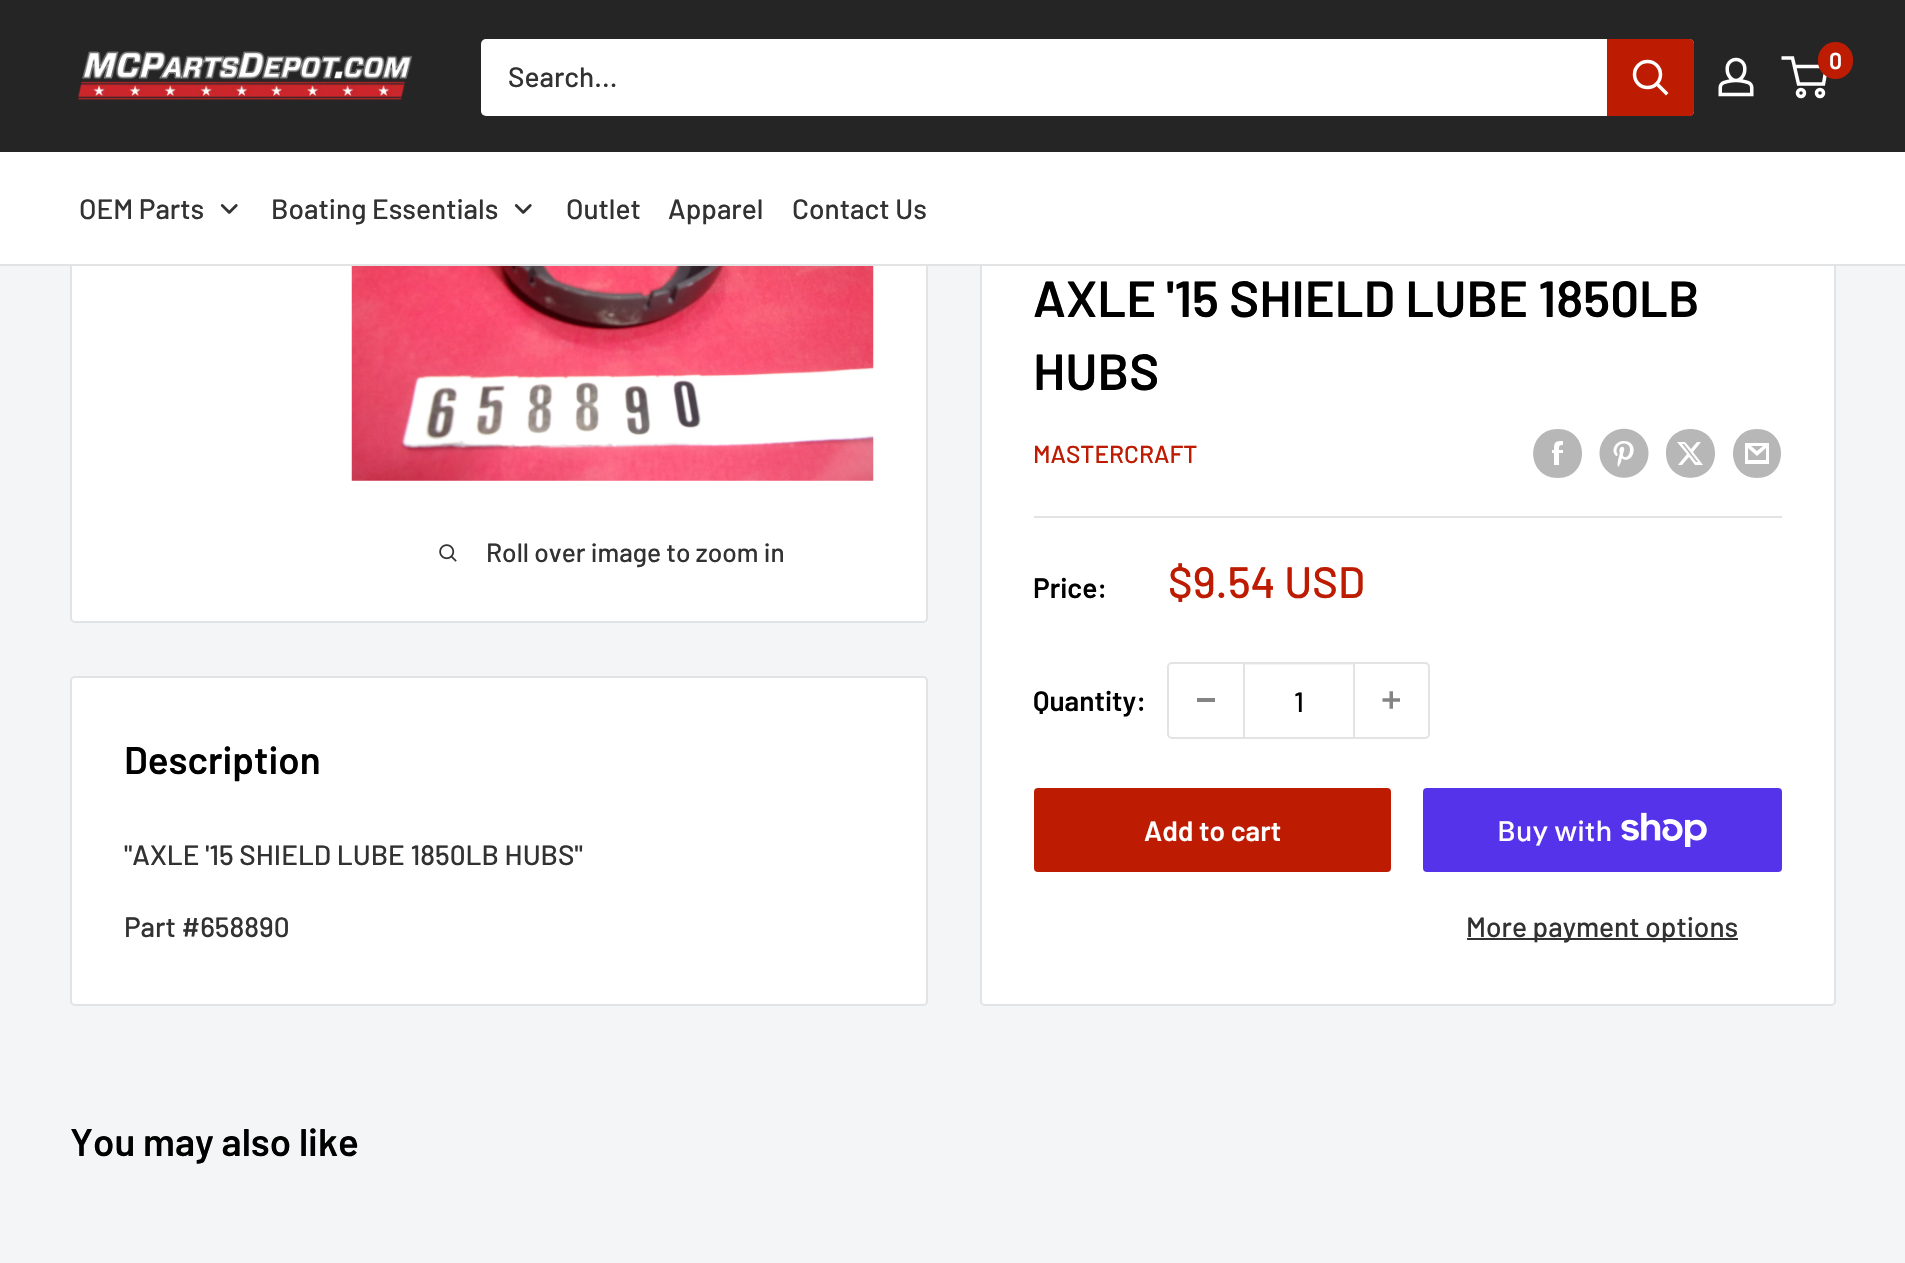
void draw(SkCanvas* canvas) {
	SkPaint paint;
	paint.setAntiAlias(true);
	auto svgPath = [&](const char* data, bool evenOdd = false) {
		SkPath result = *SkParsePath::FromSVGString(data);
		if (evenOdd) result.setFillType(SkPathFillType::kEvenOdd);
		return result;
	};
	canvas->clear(0xfff3f5f6);
	paint.setColor(0xffffffff);
	canvas->drawRoundRect(SkRect::MakeXYWH(71, 38, 856, 584), 4, 4, paint);
	paint.setStroke(true);
	paint.setStrokeWidth(2);
	paint.setColor(0xffe1e3e4);
	canvas->drawRoundRect(SkRect::MakeXYWH(71, 38, 856, 584), 4, 4, paint);
	paint.setStroke(false);
	paint.setColor(0xff252525);
	canvas->drawRect(SkRect::MakeXYWH(0, 0, 1905, 152), paint);
	canvas->drawImageRect(SkImages::DeferredFromEncodedData(SkData::MakeFromFileName("img1.png")), SkRect::MakeXYWH(78, 51, 335, 49), SkSamplingOptions());
	canvas->drawImageRect(SkImages::DeferredFromEncodedData(SkData::MakeFromFileName("img2.png")), SkRect::MakeXYWH(1718, 57, 36, 40), SkSamplingOptions());
	paint.setStroke(true);
	paint.setStrokeWidth(3.5);
	paint.setColor(0xffffffff);
	canvas->drawCircle(1801, 93, 3.5, paint);
	canvas->drawCircle(1820, 93, 3.5, paint);
	canvas->drawPath(svgPath("M1794.5 66.5H1826.5L1823.5 84H1798.5L1792.5 58H1781.5"), paint);
	paint.setStroke(false);
	paint.setColor(0xffbd1c03);
	canvas->drawRoundRect(SkRect::MakeXYWH(1818, 42, 35, 37), 17.5, 17.5, paint);
	SkFont f1(fontMgr->matchFamilyStyle("Barlow", SkFontStyle(600, SkFontStyle::kNormal_Width, SkFontStyle::kUpright_Slant)), 23);
	f1.setSubpixel(true);
	paint.setColor(0xffffffff);
	canvas->drawString("0", 1829, 69, f1, paint);
	canvas->drawRoundRect(SkRect::MakeXYWH(481, 39, 1213, 77), 5, 5, paint);
	SkFont f2(fontMgr->matchFamilyStyle("Barlow", SkFontStyle(500, SkFontStyle::kNormal_Width, SkFontStyle::kUpright_Slant)), 28);
	f2.setSubpixel(true);
	paint.setColor(0xff323232);
	canvas->drawString("Search...", 508, 87, f2, paint);
	paint.setColor(0xffbd1c03);
	canvas->drawPath(svgPath("M1607 39H1689C1692 39 1694 41 1694 44V111C1694 114 1692 116 1689 116H1607Z"), paint);
	paint.setStroke(true);
	paint.setStrokeCap(SkPaint::kSquare_Cap);
	paint.setColor(0xffffffff);
	canvas->drawPath(svgPath("M1666 93L1657 84"), paint);
	paint.setStrokeCap(SkPaint::kButt_Cap);
	canvas->drawCircle(1647.5, 74.5, 13, paint);
	paint.setStroke(false);
	canvas->drawRoundRect(SkRect::MakeXYWH(981, 227, 854, 778), 4, 4, paint);
	paint.setStroke(true);
	paint.setStrokeWidth(2);
	paint.setColor(0xffe1e3e4);
	canvas->drawRoundRect(SkRect::MakeXYWH(981, 227, 854, 778), 4, 4, paint);
	paint.setStroke(false);
	paint.setColor(0xffffffff);
	canvas->drawRect(SkRect::MakeXYWH(0, 152, 1905, 112), paint);
	paint.setColor(0xffe1e3e4);
	canvas->drawRect(SkRect::MakeXYWH(0, 264, 1905, 2), paint);
	paint.setColor(0xff323232);
	canvas->drawString("OEM Parts", 79, 219, f2, paint);
	canvas->drawImageRect(SkImages::DeferredFromEncodedData(SkData::MakeFromFileName("img3.png")), SkRect::MakeXYWH(220, 204, 18, 10), SkSamplingOptions());
	canvas->drawString("Boating Essentials", 271, 219, f2, paint);
	canvas->drawImageRect(SkImages::DeferredFromEncodedData(SkData::MakeFromFileName("img3.png")), SkRect::MakeXYWH(514, 204, 18, 10), SkSamplingOptions());
	canvas->drawString("Outlet", 566, 219, f2, paint);
	canvas->drawString("Apparel", 668, 219, f2, paint);
	canvas->drawString("Contact Us", 792, 219, f2, paint);
	canvas->drawImageRect(SkImages::DeferredFromEncodedData(SkData::MakeFromFileName("img4.png")), SkRect::MakeXYWH(351, 266, 523, 215), SkSamplingOptions());
	canvas->drawImageRect(SkImages::DeferredFromEncodedData(SkData::MakeFromFileName("img5.png")), SkRect::MakeXYWH(439, 544, 18, 18), SkSamplingOptions());
	SkFont f3(fontMgr->matchFamilyStyle("Barlow", SkFontStyle(500, SkFontStyle::kNormal_Width, SkFontStyle::kUpright_Slant)), 26.25);
	f3.setSubpixel(true);
	canvas->drawString("Roll over image to zoom in", 486, 562, f3, paint);
	SkFont f4(fontMgr->matchFamilyStyle("Barlow", SkFontStyle(600, SkFontStyle::kNormal_Width, SkFontStyle::kUpright_Slant)), 50.75);
	f4.setSubpixel(true);
	paint.setColor(0xff000000);
	canvas->drawString("AXLE '15 SHIELD LUBE 1850LB", 1033, 317, f4, paint);
	canvas->drawString("HUBS", 1033, 390, f4, paint);
	SkFont f5(fontMgr->matchFamilyStyle("Barlow", SkFontStyle(500, SkFontStyle::kNormal_Width, SkFontStyle::kUpright_Slant)), 24.5);
	f5.setSubpixel(true);
	paint.setColor(0xffbd1c03);
	canvas->drawString("MASTERCRAFT", 1033, 463, f5, paint);
	paint.setColor(0xffb7b7b7);
	canvas->drawPath(svgPath("M1558 478C1525 478 1525 429 1558 429C1590 429 1590 478 1558 478ZM1563 450H1559C1559 446 1559 445 1563 445V441C1555 441 1554 442 1554 450H1552V453H1554V465H1559V453H1563Z", true), paint);
	canvas->drawImageRect(SkImages::DeferredFromEncodedData(SkData::MakeFromFileName("img6.png")), SkRect::MakeXYWH(1599, 428, 50, 50), SkSamplingOptions());
	canvas->drawPath(svgPath("M1715 453C1715 486 1666 486 1666 453C1666 421 1715 421 1715 453ZM1701 442H1697L1691 449L1685 442H1677L1687 454L1678 465H1682L1689 457L1695 465H1703L1693 452ZM1698 462H1696L1682 444H1684Z", true), paint);
	canvas->drawPath(svgPath("M1757 478C1725 478 1725 429 1757 429C1789 429 1789 478 1757 478ZM1751 446H1763L1757 451ZM1766 448V460H1748V448L1757 456ZM1769 443H1745V464H1769Z"), paint);
	paint.setColor(0xffe1e3e4);
	canvas->drawRect(SkRect::MakeXYWH(1034, 516, 748, 2), paint);
	SkFont f6(fontMgr->matchFamilyStyle("Barlow", SkFontStyle(600, SkFontStyle::kNormal_Width, SkFontStyle::kUpright_Slant)), 28);
	f6.setSubpixel(true);
	paint.setColor(0xff000000);
	canvas->drawString("Price:", 1033, 598, f6, paint);
	SkFont f7(fontMgr->matchFamilyStyle("Barlow", SkFontStyle(500, SkFontStyle::kNormal_Width, SkFontStyle::kUpright_Slant)), 43.75);
	f7.setSubpixel(true);
	paint.setColor(0xffbd1c03);
	canvas->drawString("$9.54 USD", 1168, 598, f7, paint);
	paint.setColor(0xff000000);
	canvas->drawString("Quantity:", 1033, 711, f6, paint);
	paint.setStroke(true);
	paint.setColor(0xffe1e3e4);
	canvas->drawRoundRect(SkRect::MakeXYWH(1168, 663, 261, 75), 4, 4, paint);
	paint.setStroke(false);
	paint.setColor(0xff848484);
	canvas->drawRect(SkRect::MakeXYWH(1197, 698, 18, 4), paint);
	paint.setColor(0x66e1e3e4);
	canvas->drawRect(SkRect::MakeXYWH(1244, 664, 109, 1), paint);
	paint.setColor(0xffe1e3e4);
	canvas->drawRect(SkRect::MakeXYWH(1353, 663, 2, 74), paint);
	canvas->drawRect(SkRect::MakeXYWH(1243, 663, 2, 74), paint);
	paint.setColor(0xff000000);
	canvas->drawString("1", 1294, 712, f2, paint);
	canvas->drawImageRect(SkImages::DeferredFromEncodedData(SkData::MakeFromFileName("img7.png")), SkRect::MakeXYWH(1382, 691, 18, 18), SkSamplingOptions());
	paint.setColor(0xffbd1c03);
	canvas->drawRoundRect(SkRect::MakeXYWH(1034, 788, 357, 84), 4, 4, paint);
	paint.setColor(0xffffffff);
	canvas->drawString("Add to cart", 1144, 841, f6, paint);
	paint.setColor(0xff5433eb);
	canvas->drawRoundRect(SkRect::MakeXYWH(1423, 788, 359, 84), 4, 4, paint);
	SkFont f8(fontMgr->matchFamilyStyle("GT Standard", SkFontStyle(500, SkFontStyle::kNormal_Width, SkFontStyle::kUpright_Slant)), 28);
	f8.setSubpixel(true);
	paint.setColor(0xffffffff);
	canvas->drawString("Buy with", 1497, 841, f8, paint);
	canvas->drawImageRect(SkImages::DeferredFromEncodedData(SkData::MakeFromFileName("img8.png")), SkRect::MakeXYWH(1621, 812, 86, 35), SkSamplingOptions());
	paint.setColor(0xff323232);
	canvas->drawRect(SkRect::MakeXYWH(1467, 938, 271, 2), paint);
	canvas->drawString("More payment options", 1466, 937, f2, paint);
	paint.setColor(0xffffffff);
	canvas->drawRoundRect(SkRect::MakeXYWH(71, 677, 856, 328), 4, 4, paint);
	paint.setStroke(true);
	paint.setColor(0xffe1e3e4);
	canvas->drawRoundRect(SkRect::MakeXYWH(71, 677, 856, 328), 4, 4, paint);
	SkFont f9(fontMgr->matchFamilyStyle("Barlow", SkFontStyle(600, SkFontStyle::kNormal_Width, SkFontStyle::kUpright_Slant)), 38.5);
	f9.setSubpixel(true);
	paint.setStroke(false);
	paint.setColor(0xff000000);
	canvas->drawString("Description", 124, 774, f9, paint);
	paint.setColor(0xff323232);
	canvas->drawString("\"AXLE '15 SHIELD LUBE 1850LB HUBS\"", 124, 865, f2, paint);
	canvas->drawString("Part #658890", 124, 937, f2, paint);
	paint.setColor(0xff000000);
	canvas->drawString("You may also like", 70, 1156, f9, paint);
}
